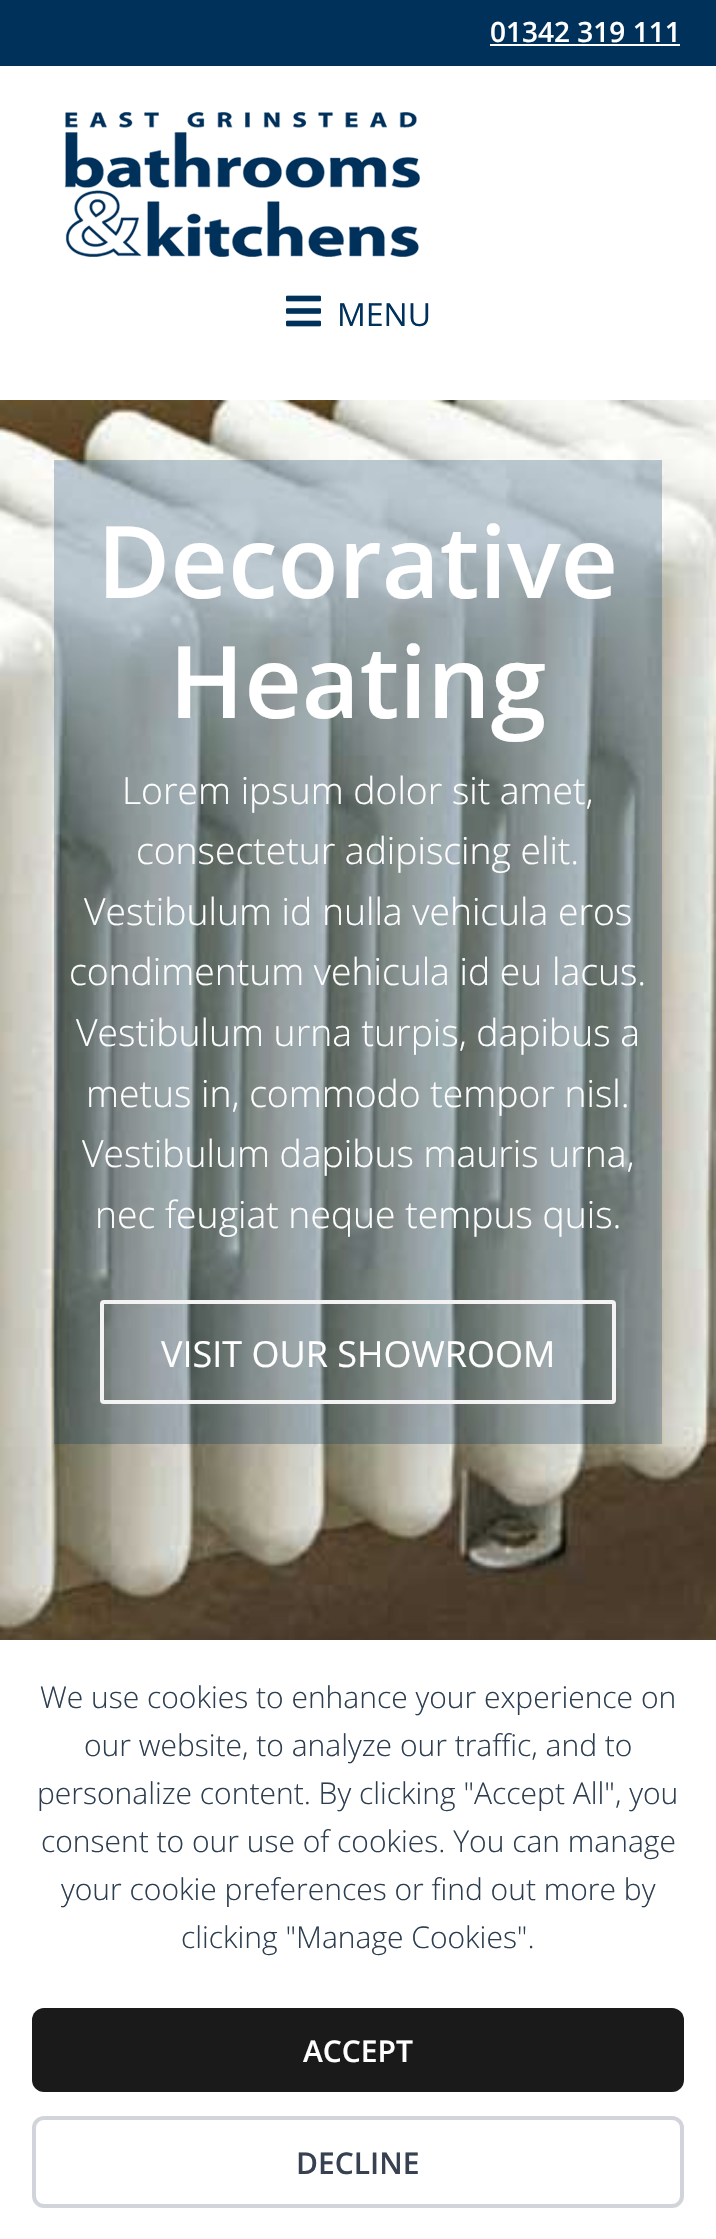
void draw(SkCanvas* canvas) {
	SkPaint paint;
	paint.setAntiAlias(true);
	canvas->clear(0xffffffff);
	paint.setColor(0xff00315b);
	canvas->drawRect(SkRect::MakeXYWH(0, 0, 716, 66), paint);
	SkFont f1(fontMgr->matchFamilyStyle("Open Sans", SkFontStyle(600, SkFontStyle::kNormal_Width, SkFontStyle::kUpright_Slant)), 28);
	f1.setSubpixel(true);
	paint.setColor(0xffffffff);
	canvas->drawString("01342 319 111", 490, 42, f1, paint);
	canvas->drawRect(SkRect::MakeXYWH(490, 44, 190, 2), paint);
	canvas->drawImageRect(SkImages::DeferredFromEncodedData(SkData::MakeFromFileName("img1.png")), SkRect::MakeXYWH(65, 112, 355, 145), SkSamplingOptions());
	canvas->drawImageRect(SkImages::DeferredFromEncodedData(SkData::MakeFromFileName("img2.png")), SkRect::MakeXYWH(286, 295, 35, 32), SkSamplingOptions());
	SkFont f2(fontMgr->matchFamilyStyle("Open Sans", SkFontStyle::Normal()), 32);
	f2.setSubpixel(true);
	paint.setColor(0xff00315b);
	canvas->drawString("MENU", 337, 326, f2, paint);
	canvas->drawImageRect(SkImages::DeferredFromEncodedData(SkData::MakeFromFileName("img3.png")), SkRect::MakeXYWH(0, 400, 716, 1240), SkSamplingOptions());
	paint.setColor(0x4000315b);
	canvas->drawRect(SkRect::MakeXYWH(54, 460, 608, 984), paint);
	SkFont f3(fontMgr->matchFamilyStyle("Open Sans", SkFontStyle(600, SkFontStyle::kNormal_Width, SkFontStyle::kUpright_Slant)), 100);
	f3.setSubpixel(true);
	paint.setColor(0xffffffff);
	canvas->drawString("Decorative", 97, 598, f3, paint);
	canvas->drawString("Heating", 169, 718, f3, paint);
	SkFont f4(fontMgr->matchFamilyStyle("Open Sans", SkFontStyle(300, SkFontStyle::kNormal_Width, SkFontStyle::kUpright_Slant)), 37.3);
	f4.setSubpixel(true);
	canvas->drawString("Lorem ipsum dolor sit amet,", 122, 804, f4, paint);
	canvas->drawString("consectetur adipiscing elit.", 136, 864, f4, paint);
	canvas->drawString("Vestibulum id nulla vehicula eros", 84, 925, f4, paint);
	canvas->drawString("condimentum vehicula id eu lacus.", 69, 985, f4, paint);
	canvas->drawString("Vestibulum urna turpis, dapibus a", 76, 1046, f4, paint);
	canvas->drawString("metus in, commodo tempor nisl.", 86, 1107, f4, paint);
	canvas->drawString("Vestibulum dapibus mauris urna,", 82, 1167, f4, paint);
	canvas->drawString("nec feugiat neque tempus quis.", 95, 1228, f4, paint);
	paint.setStroke(true);
	paint.setStrokeWidth(4);
	paint.setColor(0xfff3f3f3);
	canvas->drawRoundRect(SkRect::MakeXYWH(102, 1302, 512, 100), 2, 2, paint);
	SkFont f5(fontMgr->matchFamilyStyle("Open Sans", SkFontStyle::Normal()), 36);
	f5.setSubpixel(true);
	paint.setStroke(false);
	paint.setColor(0xffffffff);
	canvas->drawString("VISIT OUR SHOWROOM", 161, 1367, f5, paint);
	paint.setColor(0x14000000);
	paint.setMaskFilter(SkMaskFilter::MakeBlur(kNormal_SkBlurStyle, 10));
	canvas->drawRect(SkRect::MakeXYWH(0, 1636, 716, 600), paint);
	paint.setMaskFilter(nullptr);
	paint.setColor(0xffffffff);
	canvas->drawRect(SkRect::MakeXYWH(0, 1640, 716, 599), paint);
	SkFont f6(fontMgr->matchFamilyStyle("Open Sans", SkFontStyle(300, SkFontStyle::kNormal_Width, SkFontStyle::kUpright_Slant)), 30);
	f6.setSubpixel(true);
	paint.setColor(0xff2c3e50);
	canvas->drawString("We use cookies to enhance your experience on", 40, 1708, f6, paint);
	canvas->drawString("our website, to analyze our traffic, and to", 84, 1756, f6, paint);
	canvas->drawString("personalize content. By clicking \"Accept All\", you", 37, 1804, f6, paint);
	canvas->drawString("consent to our use of cookies. You can manage", 41, 1852, f6, paint);
	canvas->drawString("your cookie preferences or find out more by", 61, 1900, f6, paint);
	canvas->drawString("clicking \"Manage Cookies\".", 181, 1948, f6, paint);
	paint.setColor(0xff1a1a1a);
	canvas->drawRoundRect(SkRect::MakeXYWH(32, 2008, 652, 84), 12, 12, paint);
	SkFont f7(fontMgr->matchFamilyStyle("Open Sans", SkFontStyle(600, SkFontStyle::kNormal_Width, SkFontStyle::kUpright_Slant)), 30);
	f7.setSubpixel(true);
	paint.setColor(0xffffffff);
	canvas->drawString("ACCEPT", 303, 2062, f7, paint);
	paint.setStroke(true);
	paint.setColor(0xffd1d5db);
	canvas->drawRoundRect(SkRect::MakeXYWH(34, 2118, 648, 88), 10, 10, paint);
	paint.setStroke(false);
	paint.setColor(0xff374151);
	canvas->drawString("DECLINE", 296, 2174, f7, paint);
}
